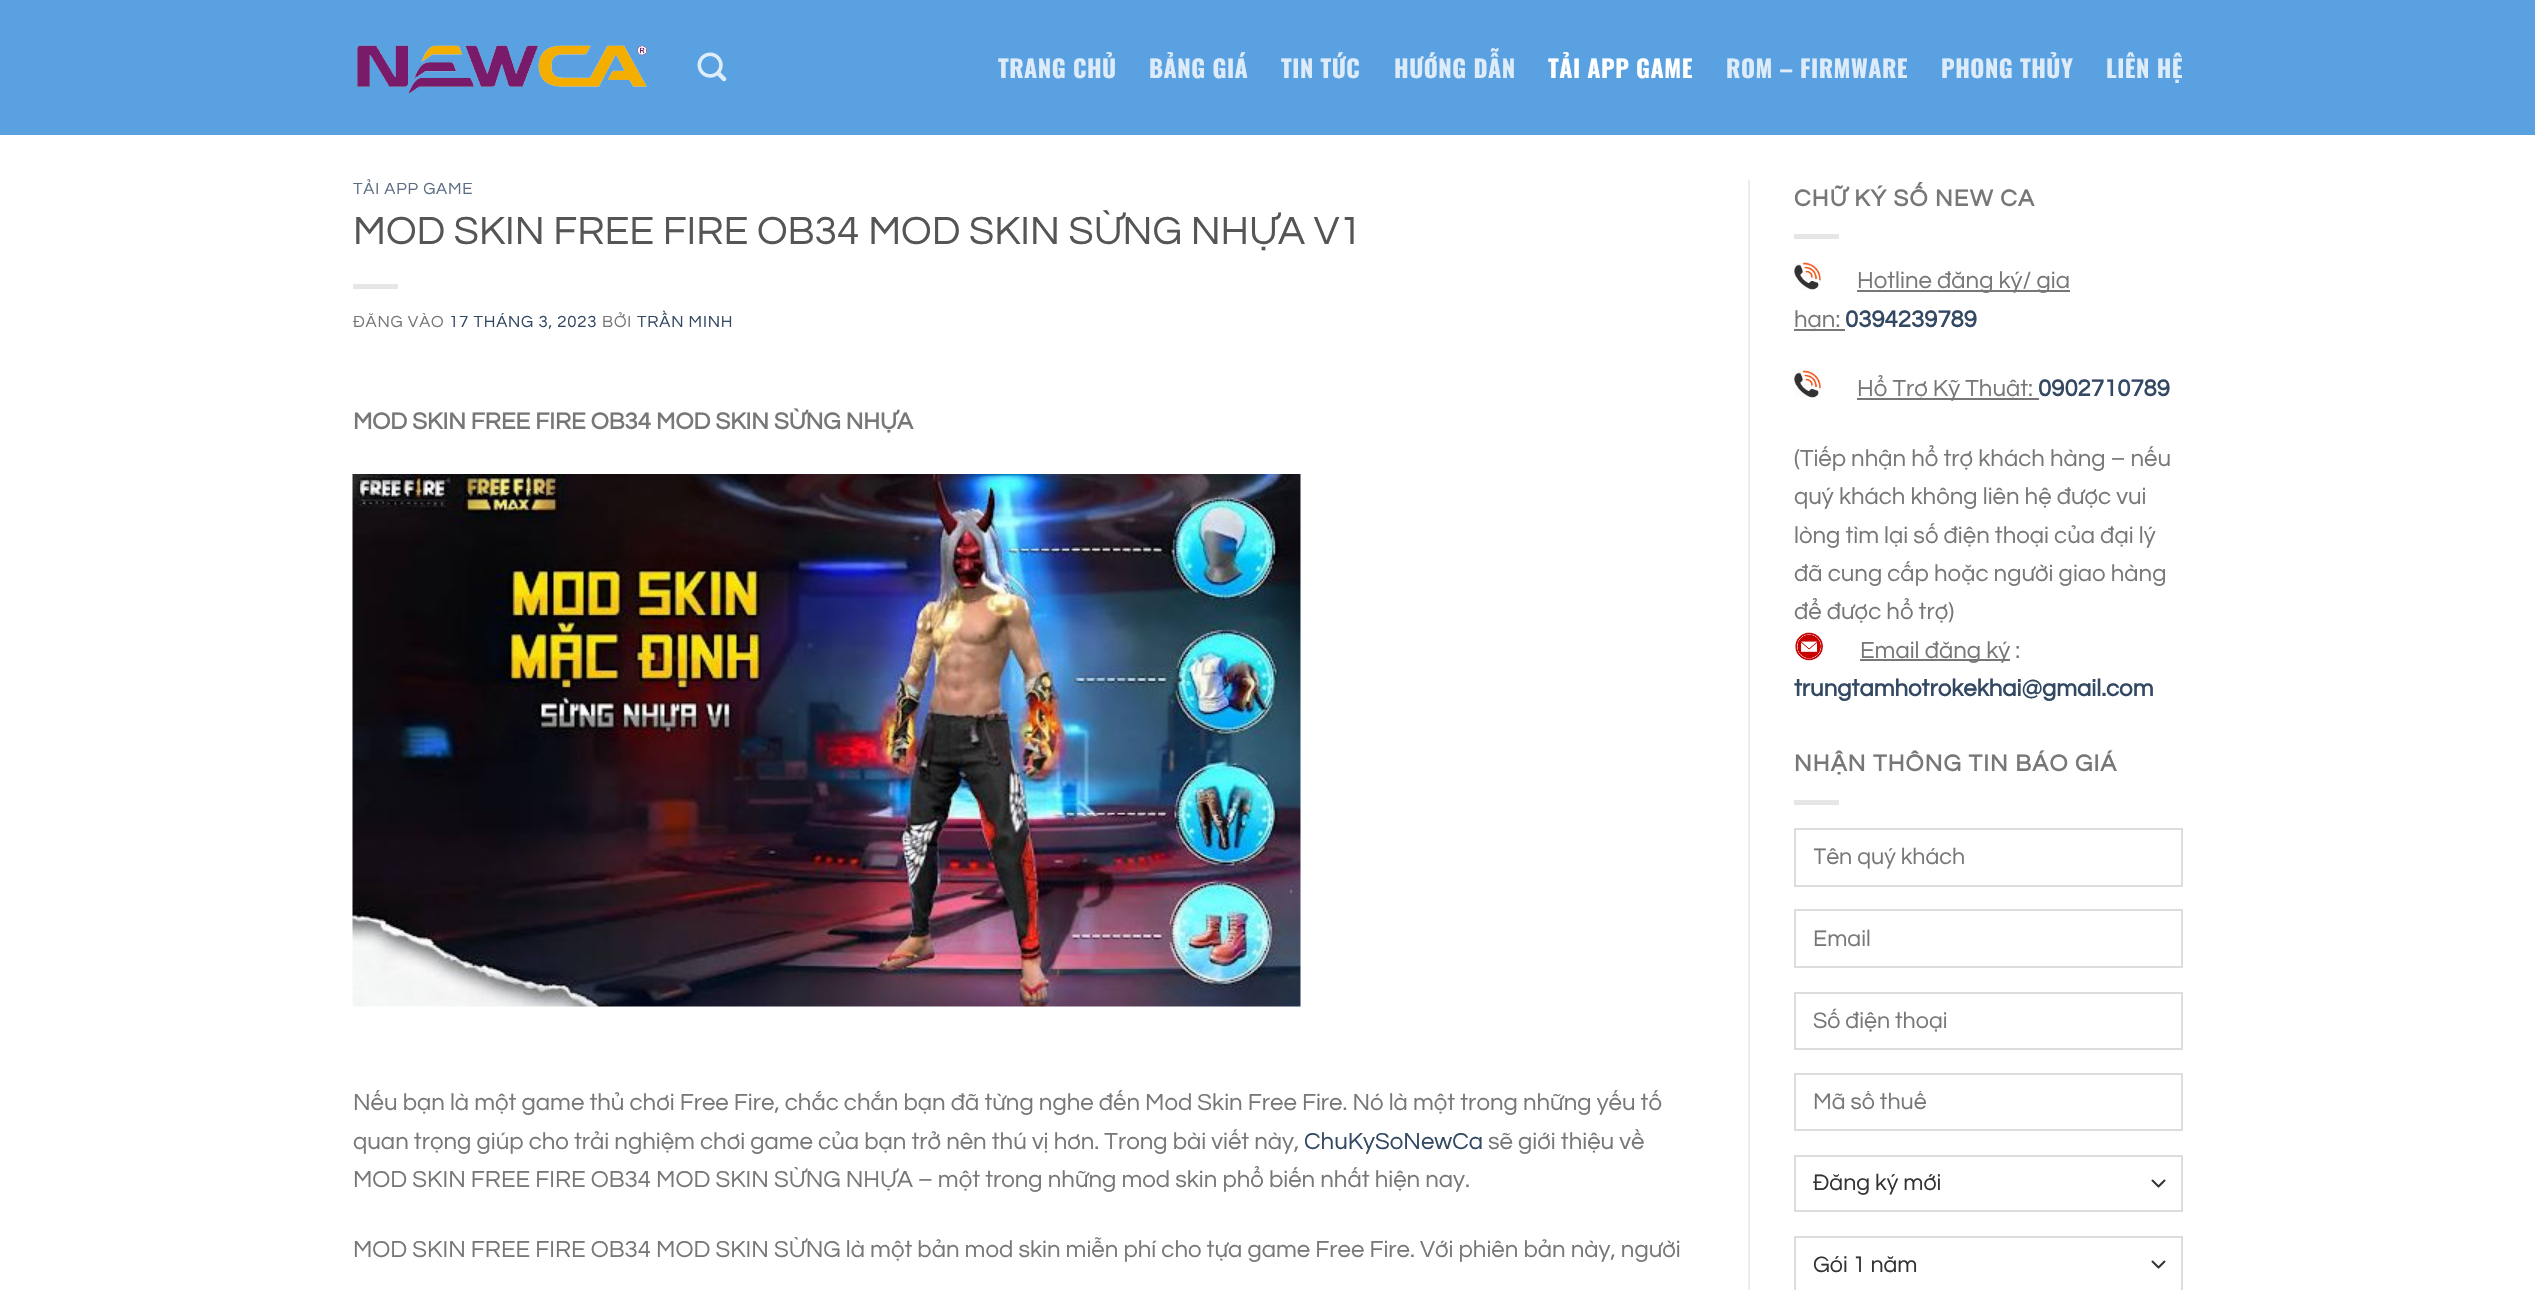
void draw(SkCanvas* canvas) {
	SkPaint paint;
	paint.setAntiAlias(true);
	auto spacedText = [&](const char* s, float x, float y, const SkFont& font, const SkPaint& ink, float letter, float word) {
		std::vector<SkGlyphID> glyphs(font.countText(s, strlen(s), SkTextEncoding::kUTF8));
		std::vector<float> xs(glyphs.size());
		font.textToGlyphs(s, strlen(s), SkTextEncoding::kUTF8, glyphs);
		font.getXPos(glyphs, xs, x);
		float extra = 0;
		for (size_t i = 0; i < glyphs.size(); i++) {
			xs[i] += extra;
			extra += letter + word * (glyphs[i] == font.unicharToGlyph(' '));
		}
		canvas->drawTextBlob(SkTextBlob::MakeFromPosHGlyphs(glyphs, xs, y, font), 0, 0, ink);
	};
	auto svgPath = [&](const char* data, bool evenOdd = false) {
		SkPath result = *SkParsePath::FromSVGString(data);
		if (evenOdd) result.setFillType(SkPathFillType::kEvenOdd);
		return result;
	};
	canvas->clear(0xffffffff);
	paint.setColor(0xff5aa1e2);
	canvas->drawRect(SkRect::MakeXYWH(0, 0, 2535, 135), paint);
	canvas->drawImageRect(SkImages::DeferredFromEncodedData(SkData::MakeFromFileName("img1.png")), SkRect::MakeXYWH(357, 45, 291, 50), SkSamplingOptions());
	canvas->drawImageRect(SkImages::DeferredFromEncodedData(SkData::MakeFromFileName("img2.png")), SkRect::MakeXYWH(697, 52, 30, 30), SkSamplingOptions());
	SkFont f1(fontMgr->matchFamilyStyle("Oswald", SkFontStyle::Bold()), 24);
	f1.setSubpixel(true);
	paint.setColor(0xffdeecf9);
	spacedText("TRANG CHỦ", 998, 78, f1, paint, 0.5, 0);
	spacedText("BẢNG GIÁ", 1149, 78, f1, paint, 0.5, 0);
	spacedText("TIN TỨC", 1281, 78, f1, paint, 0.5, 0);
	spacedText("HƯỚNG DẪN", 1394, 78, f1, paint, 0.5, 0);
	paint.setColor(0xffffffff);
	spacedText("TẢI APP GAME", 1548, 78, f1, paint, 0.5, 0);
	paint.setColor(0xffdeecf9);
	spacedText("ROM – FIRMWARE", 1726, 78, f1, paint, 0.5, 0);
	spacedText("PHONG THỦY", 1941, 78, f1, paint, 0.5, 0);
	spacedText("LIÊN HỆ", 2106, 78, f1, paint, 0.5, 0);
	SkFont f2(fontMgr->matchFamilyStyle("Questrial", SkFontStyle::Normal()), 16.75);
	f2.setSubpixel(true);
	paint.setColor(0xff5c6d81);
	spacedText("TẢI APP GAME", 353, 194, f2, paint, 0.8, 0);
	SkFont f3(fontMgr->matchFamilyStyle("Questrial", SkFontStyle::Normal()), 40.8);
	f3.setSubpixel(true);
	paint.setColor(0xff555555);
	canvas->drawString("MOD SKIN FREE FIRE OB34 MOD SKIN SỪNG NHỰA V1", 353, 244, f3, paint);
	paint.setColor(0xffe6e6e6);
	canvas->drawRect(SkRect::MakeXYWH(353, 284, 45, 5), paint);
	paint.setColor(0xff777777);
	spacedText("ĐĂNG VÀO", 353, 327, f2, paint, 0.8, 0);
	paint.setColor(0xff334862);
	spacedText("17 THÁNG 3, 2023", 449, 327, f2, paint, 0.8, 0);
	paint.setColor(0xff777777);
	spacedText("BỞI", 602, 327, f2, paint, 0.8, 0);
	paint.setColor(0xff334862);
	spacedText("TRẦN MINH", 637, 327, f2, paint, 0.8, 0);
	SkFont f4(fontMgr->matchFamilyStyle("Questrial", SkFontStyle::Bold()), 24);
	f4.setSubpixel(true);
	paint.setColor(0xff777777);
	canvas->drawString("MOD SKIN FREE FIRE OB34 MOD SKIN SỪNG NHỰA", 353, 429, f4, paint);
	canvas->drawImageRect(SkImages::DeferredFromEncodedData(SkData::MakeFromFileName("img3.png")), SkRect::MakeXYWH(352, 474, 949, 533), SkSamplingOptions());
	SkFont f5(fontMgr->matchFamilyStyle("Questrial", SkFontStyle::Normal()), 24);
	f5.setSubpixel(true);
	canvas->drawString("Nếu bạn là một game thủ chơi Free Fire, chắc chắn bạn đã từng nghe đến Mod Skin Free Fire. Nó là một trong những yếu tố", 353, 1110, f5, paint);
	canvas->drawString("quan trọng giúp cho trải nghiệm chơi game của bạn trở nên thú vị hơn. Trong bài viết này,", 353, 1149, f5, paint);
	paint.setColor(0xff334862);
	canvas->drawString("ChuKySoNewCa", 1304, 1149, f5, paint);
	paint.setColor(0xff777777);
	canvas->drawString("sẽ giới thiệu về", 1488, 1149, f5, paint);
	canvas->drawString("MOD SKIN FREE FIRE OB34 MOD SKIN SỪNG NHỰA – một trong những mod skin phổ biến nhất hiện nay.", 353, 1187, f5, paint);
	canvas->drawString("MOD SKIN FREE FIRE OB34 MOD SKIN SỪNG là một bản mod skin miễn phí cho tựa game Free Fire. Với phiên bản này, người", 353, 1257, f5, paint);
	paint.setColor(0xffececec);
	canvas->drawRect(SkRect::MakeXYWH(1748, 180, 2, 1110), paint);
	paint.setColor(0xff777777);
	spacedText("CHỮ KÝ SỐ NEW CA", 1794, 206, f4, paint, 1.2, 0);
	paint.setColor(0xffe6e6e6);
	canvas->drawRect(SkRect::MakeXYWH(1794, 234, 45, 5), paint);
	canvas->drawImageRect(SkImages::DeferredFromEncodedData(SkData::MakeFromFileName("img4.png")), SkRect::MakeXYWH(1794, 262, 27, 28), SkSamplingOptions());
	paint.setColor(0xff777777);
	canvas->drawRect(SkRect::MakeXYWH(1857, 290, 213, 2), paint);
	canvas->drawString("Hotline đăng ký/ gia", 1857, 288, f5, paint);
	canvas->drawRect(SkRect::MakeXYWH(1794, 329, 51, 2), paint);
	canvas->drawString("hạn:", 1794, 327, f5, paint);
	paint.setColor(0xff334862);
	canvas->drawString("0394239789", 1845, 327, f4, paint);
	canvas->drawImageRect(SkImages::DeferredFromEncodedData(SkData::MakeFromFileName("img4.png")), SkRect::MakeXYWH(1794, 370, 27, 28), SkSamplingOptions());
	paint.setColor(0xff777777);
	canvas->drawRect(SkRect::MakeXYWH(1857, 398, 182, 2), paint);
	canvas->drawString("Hổ Trợ Kỹ Thuật:", 1857, 396, f5, paint);
	paint.setColor(0xff334862);
	canvas->drawString("0902710789", 2038, 396, f4, paint);
	paint.setColor(0xff777777);
	canvas->drawString("(Tiếp nhận hổ trợ khách hàng – nếu", 1794, 466, f5, paint);
	canvas->drawString("quý khách không liên hệ được vui", 1794, 504, f5, paint);
	canvas->drawString("lòng tìm lại số điện thoại của đại lý", 1794, 543, f5, paint);
	canvas->drawString("đã cung cấp hoặc người giao hàng", 1794, 581, f5, paint);
	canvas->drawString("để được hổ trợ)", 1794, 619, f5, paint);
	canvas->drawImageRect(SkImages::DeferredFromEncodedData(SkData::MakeFromFileName("img5.png")), SkRect::MakeXYWH(1795, 632, 28, 29), SkSamplingOptions());
	canvas->drawRect(SkRect::MakeXYWH(1860, 659, 150, 2), paint);
	canvas->drawString("Email đăng ký :", 1860, 658, f5, paint);
	paint.setColor(0xff334862);
	canvas->drawString("trungtamhotrokekhai@gmail.com", 1794, 696, f4, paint);
	paint.setColor(0xff777777);
	spacedText("NHẬN THÔNG TIN BÁO GIÁ", 1794, 771, f4, paint, 1.2, 0);
	paint.setColor(0xffe6e6e6);
	canvas->drawRect(SkRect::MakeXYWH(1794, 800, 45, 5), paint);
	paint.setStroke(true);
	paint.setStrokeWidth(2);
	paint.setColor(0xffdddddd);
	canvas->drawRect(SkRect::MakeXYWH(1795, 829, 387, 57), paint);
	canvas->save();
	canvas->clipRect(SkRect::MakeXYWH(1814, 845, 349, 24));
	SkFont f6(fontMgr->matchFamilyStyle("Questrial", SkFontStyle::Normal()), 23.25);
	f6.setSubpixel(true);
	paint.setStroke(false);
	paint.setColor(0xff777777);
	canvas->drawString("Tên quý khách", 1813, 864, f6, paint);
	canvas->restore();
	paint.setStroke(true);
	paint.setColor(0xffdddddd);
	canvas->drawRect(SkRect::MakeXYWH(1795, 910, 387, 57), paint);
	paint.setStroke(false);
	paint.setColor(0xff777777);
	canvas->drawString("Email", 1813, 946, f6, paint);
	paint.setStroke(true);
	paint.setColor(0xffdddddd);
	canvas->drawRect(SkRect::MakeXYWH(1795, 993, 387, 56), paint);
	paint.setStroke(false);
	paint.setColor(0xff777777);
	canvas->drawString("Số điện thoại", 1813, 1028, f6, paint);
	paint.setStroke(true);
	paint.setColor(0xffdddddd);
	canvas->drawRect(SkRect::MakeXYWH(1795, 1074, 387, 56), paint);
	canvas->save();
	canvas->clipRect(SkRect::MakeXYWH(1814, 1091, 349, 24));
	paint.setStroke(false);
	paint.setColor(0xff777777);
	canvas->drawString("Mã số thuế", 1813, 1109, f6, paint);
	canvas->restore();
	paint.setStroke(true);
	paint.setStrokeCap(SkPaint::kRound_Cap);
	paint.setStrokeJoin(SkPaint::kRound_Join);
	paint.setColor(0xff333333);
	canvas->drawPath(svgPath("M2152.5 1180.5L2158.5 1186.5L2164.5 1180.5"), paint);
	paint.setStrokeCap(SkPaint::kButt_Cap);
	paint.setStrokeJoin(SkPaint::kMiter_Join);
	paint.setColor(0xffdddddd);
	canvas->drawRect(SkRect::MakeXYWH(1795, 1156, 387, 55), paint);
	paint.setStroke(false);
	paint.setColor(0xff333333);
	canvas->drawString("Đăng ký mới", 1813, 1190, f6, paint);
	paint.setStroke(true);
	paint.setStrokeCap(SkPaint::kRound_Cap);
	paint.setStrokeJoin(SkPaint::kRound_Join);
	canvas->drawPath(svgPath("M2152.5 1261.5L2158.5 1267.5L2164.5 1261.5"), paint);
	paint.setStrokeCap(SkPaint::kButt_Cap);
	paint.setStrokeJoin(SkPaint::kMiter_Join);
	paint.setColor(0xffdddddd);
	canvas->drawRect(SkRect::MakeXYWH(1795, 1237, 387, 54), paint);
	paint.setStroke(false);
	paint.setColor(0xff333333);
	canvas->drawString("Gói 1 năm", 1813, 1272, f6, paint);
}
